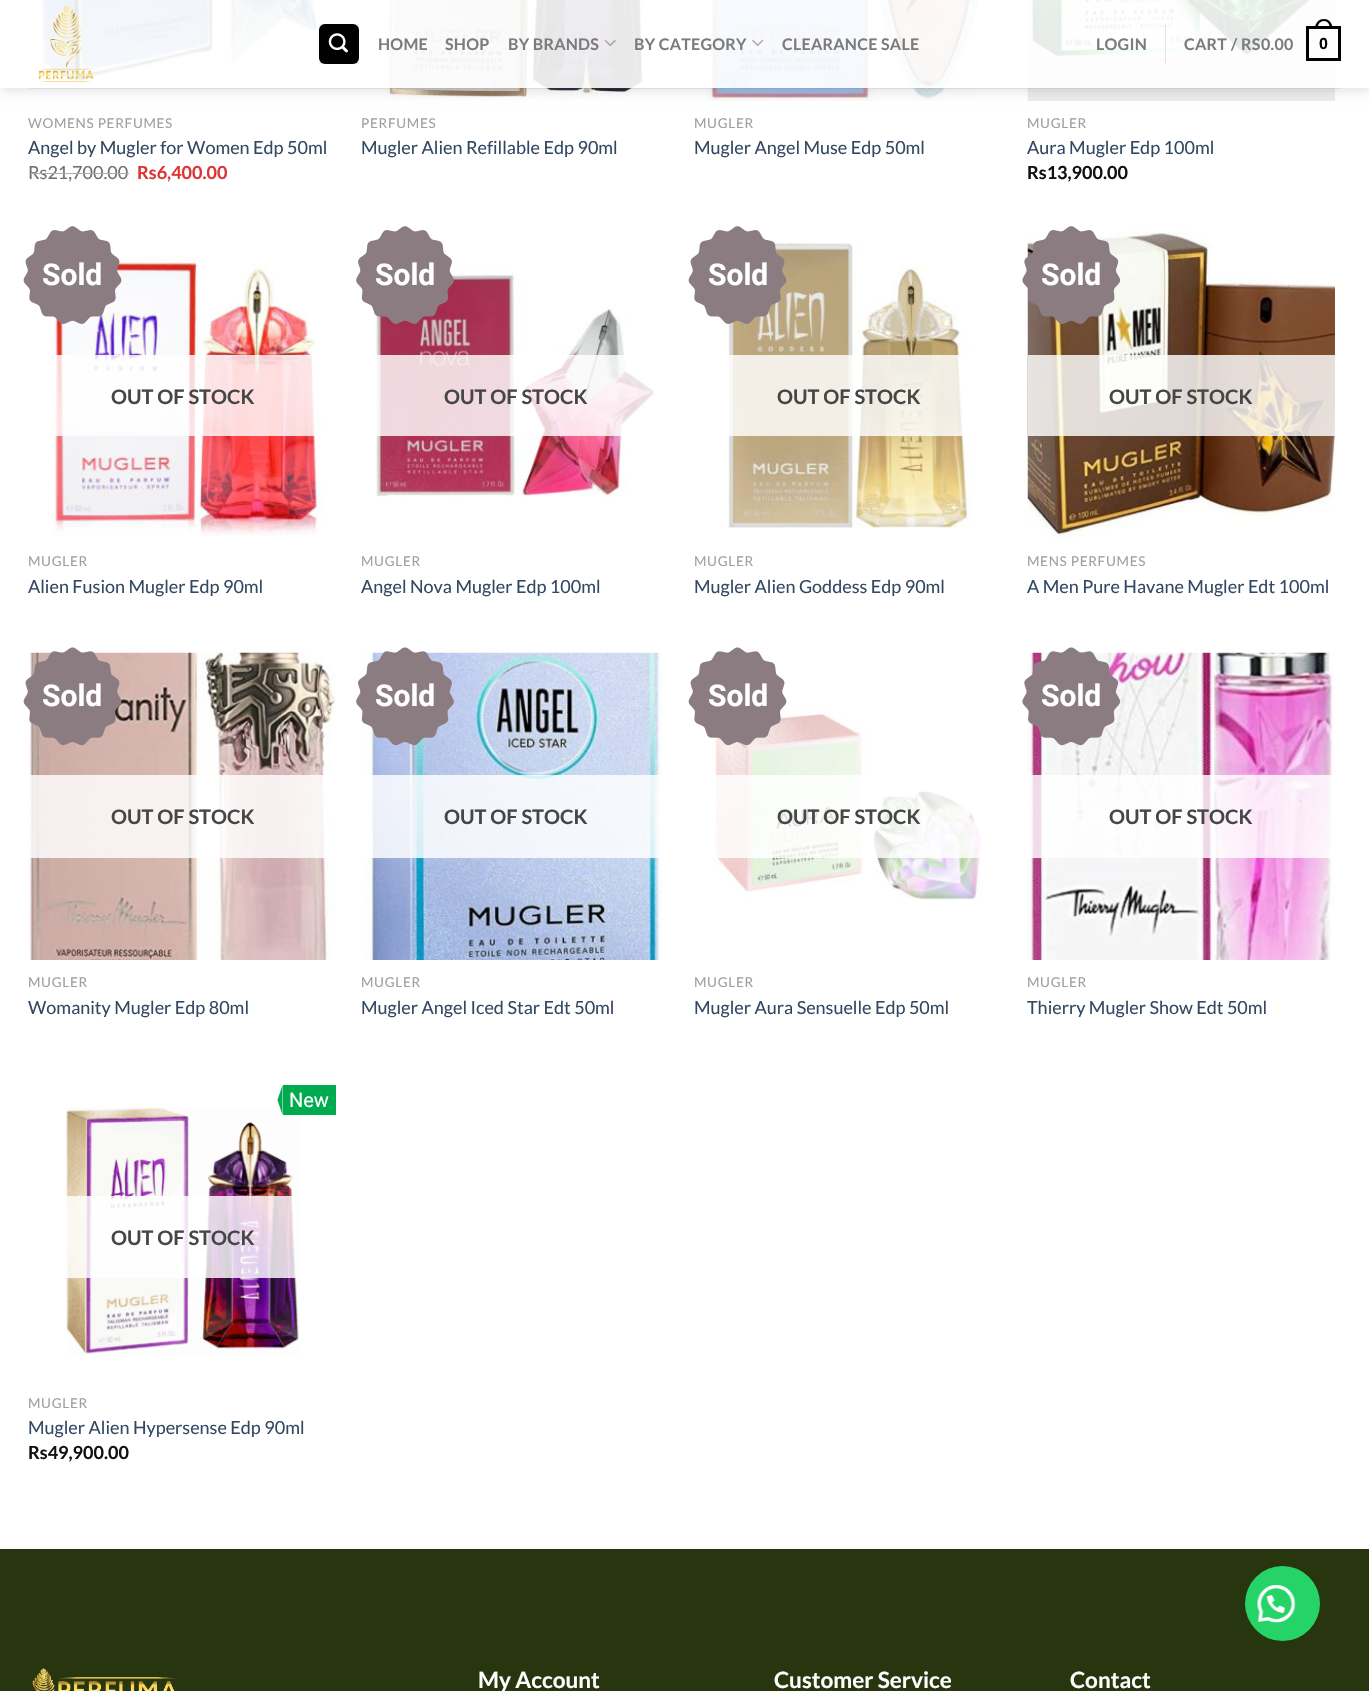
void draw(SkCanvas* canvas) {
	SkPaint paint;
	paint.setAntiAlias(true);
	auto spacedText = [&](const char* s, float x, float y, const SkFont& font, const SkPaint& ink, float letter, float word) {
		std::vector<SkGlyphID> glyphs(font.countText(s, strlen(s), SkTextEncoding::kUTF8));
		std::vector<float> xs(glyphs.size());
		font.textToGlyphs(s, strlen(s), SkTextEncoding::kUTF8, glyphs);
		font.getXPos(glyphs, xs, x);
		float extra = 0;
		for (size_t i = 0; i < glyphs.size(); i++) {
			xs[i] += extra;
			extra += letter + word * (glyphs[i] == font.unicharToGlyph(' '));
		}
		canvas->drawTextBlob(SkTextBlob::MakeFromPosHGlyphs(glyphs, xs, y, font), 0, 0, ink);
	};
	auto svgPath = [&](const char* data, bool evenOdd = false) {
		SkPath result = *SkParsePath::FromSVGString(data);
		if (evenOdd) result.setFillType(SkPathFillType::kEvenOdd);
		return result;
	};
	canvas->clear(0xffffffff);
	canvas->drawImageRect(SkImages::DeferredFromEncodedData(SkData::MakeFromFileName("img5.png")), SkRect::MakeXYWH(37, 0, 285, 84), SkSamplingOptions());
	canvas->drawImageRect(SkImages::DeferredFromEncodedData(SkData::MakeFromFileName("img6.png")), SkRect::MakeXYWH(386, 0, 259, 101), SkSamplingOptions());
	canvas->drawImageRect(SkImages::DeferredFromEncodedData(SkData::MakeFromFileName("img7.png")), SkRect::MakeXYWH(704, 0, 277, 101), SkSamplingOptions());
	canvas->drawImageRect(SkImages::DeferredFromEncodedData(SkData::MakeFromFileName("img8.png")), SkRect::MakeXYWH(1027, 0, 308, 101), SkSamplingOptions());
	canvas->save();
	canvas->clipPath(svgPath("M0 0H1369V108H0ZM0 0H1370V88H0Z", true), true);
	paint.setColor(0x26000000);
	paint.setMaskFilter(SkMaskFilter::MakeBlur(kNormal_SkBlurStyle, 6));
	canvas->drawRect(SkRect::MakeXYWH(1, 1, 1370, 88), paint);
	paint.setMaskFilter(nullptr);
	canvas->restore();
	paint.setColor(0xe6ffffff);
	canvas->drawRect(SkRect::MakeXYWH(0, 0, 1369, 88), paint);
	canvas->drawImageRect(SkImages::DeferredFromEncodedData(SkData::MakeFromFileName("img1.png")), SkRect::MakeXYWH(38, 6, 56, 76), SkSamplingOptions());
	paint.setColor(0xff000000);
	canvas->drawRoundRect(SkRect::MakeXYWH(319, 24, 40, 40), 6, 6, paint);
	paint.setStroke(true);
	paint.setStrokeWidth(1);
	paint.setColor(0x0d000000);
	canvas->drawRect(SkRect::MakeXYWH(319.5, 24.5, 39, 39), paint);
	canvas->drawImageRect(SkImages::DeferredFromEncodedData(SkData::MakeFromFileName("img2.png")), SkRect::MakeXYWH(328, 33, 20, 20), SkSamplingOptions());
	SkFont f1(fontMgr->matchFamilyStyle("Lato", SkFontStyle::Bold()), 16);
	f1.setSubpixel(true);
	paint.setStroke(false);
	paint.setColor(0xff7c7c7c);
	spacedText("HOME", 378, 50, f1, paint, 0.25, 0);
	spacedText("SHOP", 445, 50, f1, paint, 0.25, 0);
	spacedText("BY BRANDS", 508, 50, f1, paint, 0.25, 0);
	canvas->drawImageRect(SkImages::DeferredFromEncodedData(SkData::MakeFromFileName("img3.png")), SkRect::MakeXYWH(604, 39, 12, 8), SkSamplingOptions());
	spacedText("BY CATEGORY", 634, 50, f1, paint, 0.25, 0);
	canvas->drawImageRect(SkImages::DeferredFromEncodedData(SkData::MakeFromFileName("img4.png")), SkRect::MakeXYWH(752, 39, 12, 8), SkSamplingOptions());
	spacedText("CLEARANCE SALE", 782, 50, f1, paint, 0.25, 0);
	spacedText("LOGIN", 1096, 50, f1, paint, 0.25, 0);
	paint.setColor(0x1a000000);
	canvas->drawRect(SkRect::MakeXYWH(1165, 25, 1, 38), paint);
	paint.setColor(0xff7c7c7c);
	spacedText("CART", 1184, 50, f1, paint, 0.25, 0);
	spacedText("/", 1231, 50, f1, paint, 0.25, 0);
	spacedText("RS", 1241, 50, f1, paint, 0.25, 0);
	spacedText("0.00", 1261, 50, f1, paint, 0.25, 0);
	paint.setStroke(true);
	paint.setStrokeWidth(3);
	paint.setColor(0xff000000);
	canvas->drawRect(SkRect::MakeXYWH(1307.5, 27.5, 32, 32), paint);
	paint.setStroke(false);
	canvas->drawPath(svgPath("M1324 19C1329.5 19 1332.5 23.5 1332.5 29H1315C1315 23.5 1318 19 1324 19ZM1324 21C1328 21 1330 25 1330 29H1317.5C1317.5 25 1319.5 21 1324 21Z", true), paint);
	SkFont f2(fontMgr->matchFamilyStyle("Liberation Sans", SkFontStyle::Bold()), 16);
	f2.setSubpixel(true);
	spacedText("0", 1319, 49, f2, paint, 0.25, 0);
	paint.setColor(0x1a777777);
	canvas->drawRect(SkRect::MakeXYWH(29, 88, 1312, 1), paint);
	SkFont f3(fontMgr->matchFamilyStyle("Lato", SkFontStyle::Normal()), 13.5);
	f3.setSubpixel(true);
	paint.setColor(0xffa0a0a0);
	spacedText("WOMENS PERFUMES", 28, 128, f3, paint, 0.7, 0);
	SkFont f4(fontMgr->matchFamilyStyle("Lato", SkFontStyle::Normal()), 18);
	f4.setSubpixel(true);
	paint.setColor(0xff334862);
	canvas->drawString("Angel by Mugler for Women Edp 50ml", 28, 154, f4, paint);
	paint.setColor(0xff707070);
	canvas->drawString("Rs21,700.00", 28, 179, f4, paint);
	paint.setColor(0xffadadad);
	canvas->drawRect(SkRect::MakeXYWH(29, 173, 100, 1), paint);
	SkFont f5(fontMgr->matchFamilyStyle("Lato", SkFontStyle::Bold()), 18);
	f5.setSubpixel(true);
	paint.setColor(0xffdd3333);
	canvas->drawString("Rs6,400.00", 137, 179, f5, paint);
	paint.setColor(0xffa0a0a0);
	spacedText("PERFUMES", 361, 128, f3, paint, 0.7, 0);
	paint.setColor(0xff334862);
	canvas->drawString("Mugler Alien Refillable Edp 90ml", 361, 154, f4, paint);
	paint.setColor(0xffa0a0a0);
	spacedText("MUGLER", 694, 128, f3, paint, 0.7, 0);
	paint.setColor(0xff334862);
	canvas->drawString("Mugler Angel Muse Edp 50ml", 694, 154, f4, paint);
	paint.setColor(0xffa0a0a0);
	spacedText("MUGLER", 1027, 128, f3, paint, 0.7, 0);
	paint.setColor(0xff334862);
	canvas->drawString("Aura Mugler Edp 100ml", 1027, 154, f4, paint);
	paint.setColor(0xff111111);
	canvas->drawString("Rs13,900.00", 1027, 179, f5, paint);
	canvas->drawImageRect(SkImages::DeferredFromEncodedData(SkData::MakeFromFileName("img10.png")), SkRect::MakeXYWH(53, 256, 270, 280), SkSamplingOptions());
	canvas->drawImageRect(SkImages::DeferredFromEncodedData(SkData::MakeFromFileName("img9.png")), SkRect::MakeXYWH(23, 226, 99, 98), SkSamplingOptions());
	SkFont f6(fontMgr->matchFamilyStyle("Roboto", SkFontStyle::Bold()), 30);
	f6.setSubpixel(true);
	paint.setColor(0xffffffff);
	canvas->drawString("Sold", 42, 285, f6, paint);
	paint.setColor(0xcfffffff);
	canvas->drawRect(SkRect::MakeXYWH(53, 355, 263, 81), paint);
	SkFont f7(fontMgr->matchFamilyStyle("Lato", SkFontStyle::Bold()), 20);
	f7.setSubpixel(true);
	paint.setColor(0xff474646);
	canvas->drawString("OUT OF STOCK", 111, 404, f7, paint);
	paint.setColor(0xffa0a0a0);
	spacedText("MUGLER", 28, 566, f3, paint, 0.7, 0);
	paint.setColor(0xff334862);
	canvas->drawString("Alien Fusion Mugler Edp 90ml", 28, 593, f4, paint);
	canvas->drawImageRect(SkImages::DeferredFromEncodedData(SkData::MakeFromFileName("img12.png")), SkRect::MakeXYWH(375, 267, 283, 230), SkSamplingOptions());
	canvas->drawImageRect(SkImages::DeferredFromEncodedData(SkData::MakeFromFileName("img11.png")), SkRect::MakeXYWH(356, 226, 98, 98), SkSamplingOptions());
	paint.setColor(0xffffffff);
	canvas->drawString("Sold", 375, 285, f6, paint);
	paint.setColor(0xcfffffff);
	canvas->drawRect(SkRect::MakeXYWH(376, 355, 282, 81), paint);
	paint.setColor(0xff474646);
	canvas->drawString("OUT OF STOCK", 444, 404, f7, paint);
	paint.setColor(0xffa0a0a0);
	spacedText("MUGLER", 361, 566, f3, paint, 0.7, 0);
	paint.setColor(0xff334862);
	canvas->drawString("Angel Nova Mugler Edp 100ml", 361, 593, f4, paint);
	canvas->drawImageRect(SkImages::DeferredFromEncodedData(SkData::MakeFromFileName("img14.png")), SkRect::MakeXYWH(727, 242, 247, 287), SkSamplingOptions());
	canvas->drawImageRect(SkImages::DeferredFromEncodedData(SkData::MakeFromFileName("img13.png")), SkRect::MakeXYWH(688, 226, 99, 98), SkSamplingOptions());
	paint.setColor(0xffffffff);
	canvas->drawString("Sold", 708, 285, f6, paint);
	paint.setColor(0xcfffffff);
	canvas->drawRect(SkRect::MakeXYWH(727, 355, 247, 81), paint);
	paint.setColor(0xff474646);
	canvas->drawString("OUT OF STOCK", 777, 404, f7, paint);
	paint.setColor(0xffa0a0a0);
	spacedText("MUGLER", 694, 566, f3, paint, 0.7, 0);
	paint.setColor(0xff334862);
	canvas->drawString("Mugler Alien Goddess Edp 90ml", 694, 593, f4, paint);
	canvas->drawImageRect(SkImages::DeferredFromEncodedData(SkData::MakeFromFileName("img16.png")), SkRect::MakeXYWH(1027, 231, 308, 309), SkSamplingOptions());
	canvas->drawImageRect(SkImages::DeferredFromEncodedData(SkData::MakeFromFileName("img15.png")), SkRect::MakeXYWH(1022, 226, 99, 98), SkSamplingOptions());
	paint.setColor(0xffffffff);
	canvas->drawString("Sold", 1041, 285, f6, paint);
	paint.setColor(0xcfffffff);
	canvas->drawRect(SkRect::MakeXYWH(1028, 355, 307, 81), paint);
	paint.setColor(0xff474646);
	canvas->drawString("OUT OF STOCK", 1109, 404, f7, paint);
	paint.setColor(0xffa0a0a0);
	spacedText("MENS PERFUMES", 1027, 566, f3, paint, 0.7, 0);
	paint.setColor(0xff334862);
	canvas->drawString("A Men Pure Havane Mugler Edt 100ml", 1027, 593, f4, paint);
	canvas->drawImageRect(SkImages::DeferredFromEncodedData(SkData::MakeFromFileName("img18.png")), SkRect::MakeXYWH(29, 652, 307, 308), SkSamplingOptions());
	canvas->drawImageRect(SkImages::DeferredFromEncodedData(SkData::MakeFromFileName("img17.png")), SkRect::MakeXYWH(23, 647, 99, 99), SkSamplingOptions());
	paint.setColor(0xffffffff);
	canvas->drawString("Sold", 42, 706, f6, paint);
	paint.setColor(0xcfffffff);
	canvas->drawRect(SkRect::MakeXYWH(29, 775, 302, 83), paint);
	paint.setColor(0xff474646);
	canvas->drawString("OUT OF STOCK", 111, 824, f7, paint);
	paint.setColor(0xffa0a0a0);
	spacedText("MUGLER", 28, 987, f3, paint, 0.7, 0);
	paint.setColor(0xff334862);
	canvas->drawString("Womanity Mugler Edp 80ml", 28, 1014, f4, paint);
	canvas->drawImageRect(SkImages::DeferredFromEncodedData(SkData::MakeFromFileName("img20.png")), SkRect::MakeXYWH(362, 652, 300, 308), SkSamplingOptions());
	canvas->drawImageRect(SkImages::DeferredFromEncodedData(SkData::MakeFromFileName("img19.png")), SkRect::MakeXYWH(356, 647, 98, 99), SkSamplingOptions());
	paint.setColor(0xffffffff);
	canvas->drawString("Sold", 375, 706, f6, paint);
	paint.setColor(0xcfffffff);
	canvas->drawRect(SkRect::MakeXYWH(362, 775, 300, 83), paint);
	paint.setColor(0xff474646);
	canvas->drawString("OUT OF STOCK", 444, 824, f7, paint);
	paint.setColor(0xffa0a0a0);
	spacedText("MUGLER", 361, 987, f3, paint, 0.7, 0);
	paint.setColor(0xff334862);
	canvas->drawString("Mugler Angel Iced Star Edt 50ml", 361, 1014, f4, paint);
	canvas->drawImageRect(SkImages::DeferredFromEncodedData(SkData::MakeFromFileName("img22.png")), SkRect::MakeXYWH(712, 710, 270, 190), SkSamplingOptions());
	canvas->drawImageRect(SkImages::DeferredFromEncodedData(SkData::MakeFromFileName("img21.png")), SkRect::MakeXYWH(688, 647, 99, 99), SkSamplingOptions());
	paint.setColor(0xffffffff);
	canvas->drawString("Sold", 708, 706, f6, paint);
	paint.setColor(0xcfffffff);
	canvas->drawRect(SkRect::MakeXYWH(712, 775, 270, 83), paint);
	paint.setColor(0xff474646);
	canvas->drawString("OUT OF STOCK", 777, 824, f7, paint);
	paint.setColor(0xffa0a0a0);
	spacedText("MUGLER", 694, 987, f3, paint, 0.7, 0);
	paint.setColor(0xff334862);
	canvas->drawString("Mugler Aura Sensuelle Edp 50ml", 694, 1014, f4, paint);
	canvas->drawImageRect(SkImages::DeferredFromEncodedData(SkData::MakeFromFileName("img24.png")), SkRect::MakeXYWH(1028, 652, 307, 308), SkSamplingOptions());
	canvas->drawImageRect(SkImages::DeferredFromEncodedData(SkData::MakeFromFileName("img23.png")), SkRect::MakeXYWH(1022, 647, 99, 99), SkSamplingOptions());
	paint.setColor(0xffffffff);
	canvas->drawString("Sold", 1041, 706, f6, paint);
	paint.setColor(0xcfffffff);
	canvas->drawRect(SkRect::MakeXYWH(1028, 775, 307, 83), paint);
	paint.setColor(0xff474646);
	canvas->drawString("OUT OF STOCK", 1109, 824, f7, paint);
	paint.setColor(0xffa0a0a0);
	spacedText("MUGLER", 1027, 987, f3, paint, 0.7, 0);
	paint.setColor(0xff334862);
	canvas->drawString("Thierry Mugler Show Edt 50ml", 1027, 1014, f4, paint);
	canvas->drawImageRect(SkImages::DeferredFromEncodedData(SkData::MakeFromFileName("img25.png")), SkRect::MakeXYWH(66, 1107, 233, 247), SkSamplingOptions());
	paint.setColor(0xff00aa4f);
	canvas->drawRect(SkRect::MakeXYWH(283, 1085, 53, 30), paint);
	canvas->drawPath(svgPath("M282.5 1085V1115L277.5 1100Z"), paint);
	SkFont f8(fontMgr->matchFamilyStyle("Roboto", SkFontStyle::Normal()), 20);
	f8.setSubpixel(true);
	paint.setColor(0xffffffff);
	canvas->drawString("New", 289, 1107, f8, paint);
	paint.setColor(0xcfffffff);
	canvas->drawRect(SkRect::MakeXYWH(66, 1196, 231, 82), paint);
	paint.setColor(0xff474646);
	canvas->drawString("OUT OF STOCK", 111, 1245, f7, paint);
	paint.setColor(0xffa0a0a0);
	spacedText("MUGLER", 28, 1408, f3, paint, 0.7, 0);
	paint.setColor(0xff334862);
	canvas->drawString("Mugler Alien Hypersense Edp 90ml", 28, 1434, f4, paint);
	paint.setColor(0xff111111);
	canvas->drawString("Rs49,900.00", 28, 1459, f5, paint);
	paint.setColor(0xff27360f);
	canvas->drawRect(SkRect::MakeXYWH(0, 1549, 1369, 142), paint);
	canvas->drawImageRect(SkImages::DeferredFromEncodedData(SkData::MakeFromFileName("img26.png")), SkRect::MakeXYWH(32, 1668, 144, 23), SkSamplingOptions());
	SkFont f9(fontMgr->matchFamilyStyle("Lato", SkFontStyle::Bold()), 22.5);
	f9.setSubpixel(true);
	paint.setColor(0xffffffff);
	canvas->drawString("My Account", 478, 1688, f9, paint);
	canvas->drawString("Customer Service", 774, 1688, f9, paint);
	canvas->drawString("Contact", 1070, 1688, f9, paint);
	paint.setColor(0xff25d366);
	canvas->drawCircle(1282.5, 1603.5, 37.5, paint);
	canvas->drawImageRect(SkImages::DeferredFromEncodedData(SkData::MakeFromFileName("img27.png")), SkRect::MakeXYWH(1257, 1585, 39, 38), SkSamplingOptions());
}
